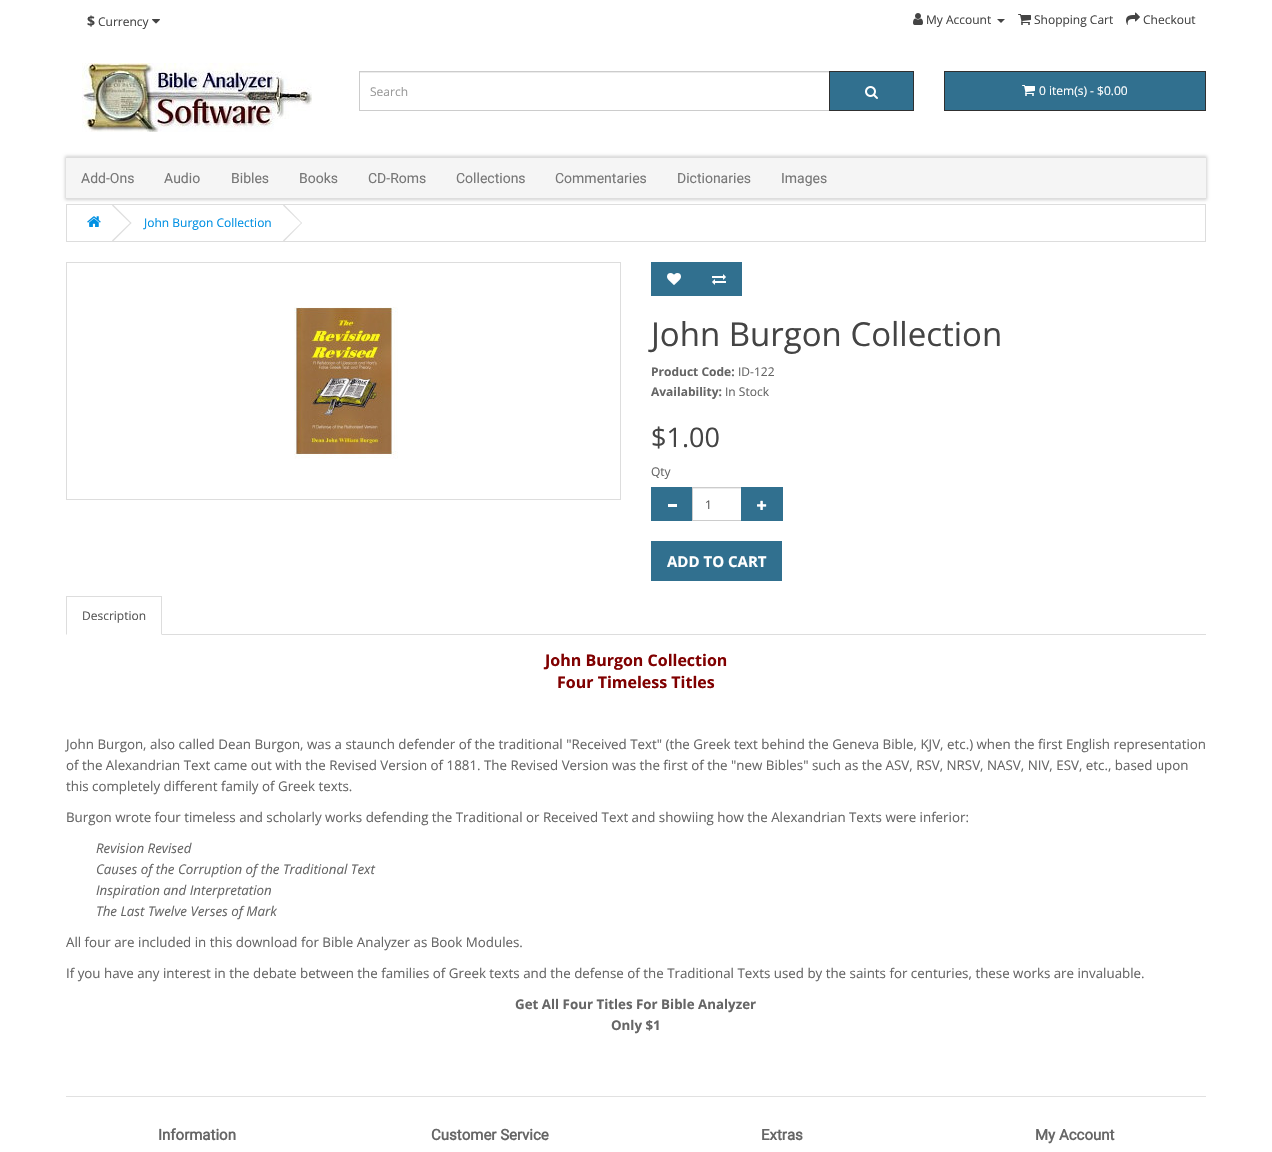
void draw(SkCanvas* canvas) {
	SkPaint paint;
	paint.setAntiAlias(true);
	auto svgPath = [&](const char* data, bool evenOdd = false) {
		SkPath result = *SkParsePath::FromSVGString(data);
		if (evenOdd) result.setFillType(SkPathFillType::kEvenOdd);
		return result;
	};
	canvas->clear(0xffffffff);
	SkFont f1(fontMgr->matchFamilyStyle("Open Sans", SkFontStyle::Bold()), 14);
	f1.setSubpixel(true);
	paint.setColor(0xff444444);
	canvas->drawString("$", 87, 26, f1, paint);
	SkFont f2(fontMgr->matchFamilyStyle("Open Sans", SkFontStyle::Normal()), 12);
	f2.setSubpixel(true);
	canvas->drawString("Currency", 98, 26, f2, paint);
	canvas->drawImageRect(SkImages::DeferredFromEncodedData(SkData::MakeFromFileName("img1.png")), SkRect::MakeXYWH(152, 19, 8, 5), SkSamplingOptions());
	canvas->drawImageRect(SkImages::DeferredFromEncodedData(SkData::MakeFromFileName("img2.png")), SkRect::MakeXYWH(913, 13, 10, 12), SkSamplingOptions());
	canvas->drawString("My Account", 926, 24, f2, paint);
	canvas->drawPath(svgPath("M997 19H1005L1001 23Z"), paint);
	canvas->drawImageRect(SkImages::DeferredFromEncodedData(SkData::MakeFromFileName("img3.png")), SkRect::MakeXYWH(1018, 14, 13, 11), SkSamplingOptions());
	canvas->drawString("Shopping Cart", 1034, 24, f2, paint);
	canvas->drawImageRect(SkImages::DeferredFromEncodedData(SkData::MakeFromFileName("img4.png")), SkRect::MakeXYWH(1126, 12, 14, 13), SkSamplingOptions());
	canvas->drawString("Checkout", 1143, 24, f2, paint);
	canvas->drawImageRect(SkImages::DeferredFromEncodedData(SkData::MakeFromFileName("img5.png")), SkRect::MakeXYWH(82, 63, 230, 69), SkSamplingOptions());
	paint.setColor(0xffececec);
	canvas->drawRect(SkRect::MakeXYWH(360, 72, 469, 1), paint);
	paint.setStroke(true);
	paint.setStrokeWidth(1);
	paint.setColor(0xffcccccc);
	canvas->drawRect(SkRect::MakeXYWH(359.5, 71.5, 470, 39), paint);
	paint.setStroke(false);
	paint.setColor(0xff999999);
	canvas->drawString("Search", 370, 96, f2, paint);
	paint.setColor(0xff31708f);
	canvas->drawRect(SkRect::MakeXYWH(829.5, 71.5, 84, 39), paint);
	paint.setStroke(true);
	paint.setColor(0xff303030);
	canvas->drawRect(SkRect::MakeXYWH(829.5, 71.5, 84, 39), paint);
	canvas->drawImageRect(SkImages::DeferredFromEncodedData(SkData::MakeFromFileName("img6.png")), SkRect::MakeXYWH(865, 86, 13, 13), SkSamplingOptions());
	paint.setStroke(false);
	paint.setColor(0xff31708f);
	canvas->drawRect(SkRect::MakeXYWH(944.5, 71.5, 261, 39), paint);
	paint.setStroke(true);
	paint.setColor(0xff303030);
	canvas->drawRect(SkRect::MakeXYWH(944.5, 71.5, 261, 39), paint);
	canvas->drawImageRect(SkImages::DeferredFromEncodedData(SkData::MakeFromFileName("img7.png")), SkRect::MakeXYWH(1022, 85, 13, 11), SkSamplingOptions());
	paint.setStroke(false);
	paint.setColor(0xffffffff);
	canvas->drawString("0 item(s) - $0.00", 1039, 95, f2, paint);
	paint.setColor(0xffd1d1d1);
	paint.setMaskFilter(SkMaskFilter::MakeBlur(kNormal_SkBlurStyle, 1.5));
	canvas->drawRect(SkRect::MakeXYWH(65, 156, 1142, 44), paint);
	paint.setMaskFilter(nullptr);
	paint.setColor(0xfff5f5f5);
	canvas->drawRect(SkRect::MakeXYWH(66, 158, 1140, 40), paint);
	paint.setColor(0xffdddddd);
	canvas->drawRect(SkRect::MakeXYWH(66, 157, 1140, 1), paint);
	canvas->drawRect(SkRect::MakeXYWH(66, 198, 1140, 1), paint);
	SkFont f3(fontMgr->matchFamilyStyle("Roboto", SkFontStyle::Normal()), 14);
	f3.setSubpixel(true);
	paint.setColor(0xff777777);
	canvas->drawString("Add-Ons", 81, 183, f3, paint);
	canvas->drawString("Audio", 164, 183, f3, paint);
	canvas->drawString("Bibles", 231, 183, f3, paint);
	canvas->drawString("Books", 299, 183, f3, paint);
	canvas->drawString("CD-Roms", 368, 183, f3, paint);
	canvas->drawString("Collections", 456, 183, f3, paint);
	canvas->drawString("Commentaries", 555, 183, f3, paint);
	canvas->drawString("Dictionaries", 677, 183, f3, paint);
	canvas->drawString("Images", 781, 183, f3, paint);
	paint.setStroke(true);
	paint.setColor(0xffdddddd);
	canvas->drawRect(SkRect::MakeXYWH(66.5, 204.5, 1139, 37), paint);
	canvas->drawImageRect(SkImages::DeferredFromEncodedData(SkData::MakeFromFileName("img8.png")), SkRect::MakeXYWH(87, 216, 14, 11), SkSamplingOptions());
	paint.setStroke(false);
	canvas->drawPath(svgPath("M112 205.5L113 204.5L131.5 223L130.5 223.5Z"), paint);
	canvas->drawPath(svgPath("M112 240.5L130.5 222.5L131.5 223L113 241.5Z"), paint);
	paint.setColor(0xff0090e3);
	canvas->drawString("John Burgon Collection", 144, 227, f2, paint);
	paint.setColor(0xffdddddd);
	canvas->drawPath(svgPath("M283 205.5L284 204.5L302 223L301.5 223.5Z"), paint);
	canvas->drawPath(svgPath("M283 240.5L301.5 222.5L302 223L284 241.5Z"), paint);
	paint.setStroke(true);
	canvas->drawRect(SkRect::MakeXYWH(66.5, 262.5, 554, 237), paint);
	canvas->drawImageRect(SkImages::DeferredFromEncodedData(SkData::MakeFromFileName("img9.png")), SkRect::MakeXYWH(294, 307, 104, 152), SkSamplingOptions());
	paint.setStroke(false);
	paint.setColor(0xff31708f);
	canvas->drawRect(SkRect::MakeXYWH(651, 262, 91, 34), paint);
	canvas->drawImageRect(SkImages::DeferredFromEncodedData(SkData::MakeFromFileName("img10.png")), SkRect::MakeXYWH(667, 273, 14, 12), SkSamplingOptions());
	canvas->drawImageRect(SkImages::DeferredFromEncodedData(SkData::MakeFromFileName("img11.png")), SkRect::MakeXYWH(712, 274, 14, 11), SkSamplingOptions());
	SkFont f4(fontMgr->matchFamilyStyle("Open Sans", SkFontStyle::Normal()), 33);
	f4.setSubpixel(true);
	paint.setColor(0xff444444);
	canvas->drawString("John Burgon Collection", 651, 346, f4, paint);
	SkFont f5(fontMgr->matchFamilyStyle("Open Sans", SkFontStyle::Bold()), 12);
	f5.setSubpixel(true);
	paint.setColor(0xff666666);
	canvas->drawString("Product Code:", 651, 376, f5, paint);
	canvas->drawString("ID-122", 738, 376, f2, paint);
	canvas->drawString("Availability:", 651, 396, f5, paint);
	canvas->drawString("In Stock", 725, 396, f2, paint);
	SkFont f6(fontMgr->matchFamilyStyle("Open Sans", SkFontStyle::Normal()), 27);
	f6.setSubpixel(true);
	paint.setColor(0xff444444);
	canvas->drawString("$1.00", 651, 447, f6, paint);
	paint.setColor(0xff666666);
	canvas->drawString("Qty", 651, 476, f2, paint);
	paint.setColor(0xff31708f);
	canvas->drawRect(SkRect::MakeXYWH(651, 487, 41, 34), paint);
	paint.setColor(0xffffffff);
	canvas->drawRect(SkRect::MakeXYWH(668, 504, 9, 3), paint);
	paint.setColor(0xffececec);
	canvas->drawRect(SkRect::MakeXYWH(693, 488, 48, 1), paint);
	paint.setStroke(true);
	paint.setColor(0xffcccccc);
	canvas->drawRect(SkRect::MakeXYWH(692.5, 487.5, 49, 33), paint);
	paint.setStroke(false);
	paint.setColor(0xff555555);
	canvas->drawString("1", 705, 509, f2, paint);
	paint.setColor(0xff31708f);
	canvas->drawRect(SkRect::MakeXYWH(741, 487, 42, 34), paint);
	canvas->drawImageRect(SkImages::DeferredFromEncodedData(SkData::MakeFromFileName("img12.png")), SkRect::MakeXYWH(757, 500, 10, 10), SkSamplingOptions());
	canvas->drawRect(SkRect::MakeXYWH(651, 541, 131, 40), paint);
	SkFont f7(fontMgr->matchFamilyStyle("Open Sans", SkFontStyle::Bold()), 15);
	f7.setSubpixel(true);
	paint.setColor(0xffffffff);
	canvas->drawString("ADD TO CART", 667, 567, f7, paint);
	paint.setColor(0xffdddddd);
	canvas->drawRect(SkRect::MakeXYWH(162, 634, 1044, 1), paint);
	canvas->drawRect(SkRect::MakeXYWH(66, 596, 96, 1), paint);
	canvas->drawPath(svgPath("M162 596V635L161 634V597Z"), paint);
	canvas->drawPath(svgPath("M66 635V596L67 597V634Z"), paint);
	paint.setColor(0xff555555);
	canvas->drawString("Description", 82, 620, f2, paint);
	SkFont f8(fontMgr->matchFamilyStyle("Open Sans", SkFontStyle::Bold()), 16);
	f8.setSubpixel(true);
	paint.setColor(0xff800000);
	canvas->drawString("John Burgon Collection", 545, 666, f8, paint);
	canvas->drawString("Four Timeless Titles", 557, 688, f8, paint);
	SkFont f9(fontMgr->matchFamilyStyle("Open Sans", SkFontStyle::Normal()), 13.33);
	f9.setSubpixel(true);
	paint.setColor(0xff666666);
	canvas->drawString("John Burgon, also called Dean Burgon, was a staunch defender of the traditional \"Received Text\" (the Greek text behind the Geneva Bible, KJV, etc.) when the first English representation", 66, 749, f9, paint);
	canvas->drawString("of the Alexandrian Text came out with the Revised Version of 1881. The Revised Version was the first of the \"new Bibles\" such as the ASV, RSV, NRSV, NASV, NIV, ESV, etc., based upon", 66, 770, f9, paint);
	canvas->drawString("this completely different family of Greek texts.", 66, 791, f9, paint);
	canvas->drawString("Burgon wrote four timeless and scholarly works defending the Traditional or Received Text and showiing how the Alexandrian Texts were inferior:", 66, 822, f9, paint);
	SkFont f10(fontMgr->matchFamilyStyle("Open Sans", SkFontStyle::Italic()), 13.33);
	f10.setSubpixel(true);
	canvas->drawString("Revision Revised", 96, 853, f10, paint);
	canvas->drawString("Causes of the Corruption of the Traditional Text", 96, 874, f10, paint);
	canvas->drawString("Inspiration and Interpretation", 96, 895, f10, paint);
	canvas->drawString("The Last Twelve Verses of Mark", 96, 916, f10, paint);
	canvas->drawString("All four are included in this download for Bible Analyzer as Book Modules.", 66, 947, f9, paint);
	canvas->drawString("If you have any interest in the debate between the families of Greek texts and the defense of the Traditional Texts used by the saints for centuries, these works are invaluable.", 66, 978, f9, paint);
	SkFont f11(fontMgr->matchFamilyStyle("Open Sans", SkFontStyle::Bold()), 13.33);
	f11.setSubpixel(true);
	canvas->drawString("Get All Four Titles For Bible Analyzer", 515, 1009, f11, paint);
	canvas->drawString("Only $1", 611, 1030, f11, paint);
	paint.setColor(0xffe1e1e1);
	canvas->drawRect(SkRect::MakeXYWH(66, 1096, 1140, 1), paint);
	SkFont f12(fontMgr->matchFamilyStyle("Roboto", SkFontStyle::Bold()), 15);
	f12.setSubpixel(true);
	paint.setColor(0xff666666);
	canvas->drawString("Information", 158, 1140, f12, paint);
	canvas->drawString("Customer Service", 431, 1140, f12, paint);
	canvas->drawString("Extras", 761, 1140, f12, paint);
	canvas->drawString("My Account", 1035, 1140, f12, paint);
}
